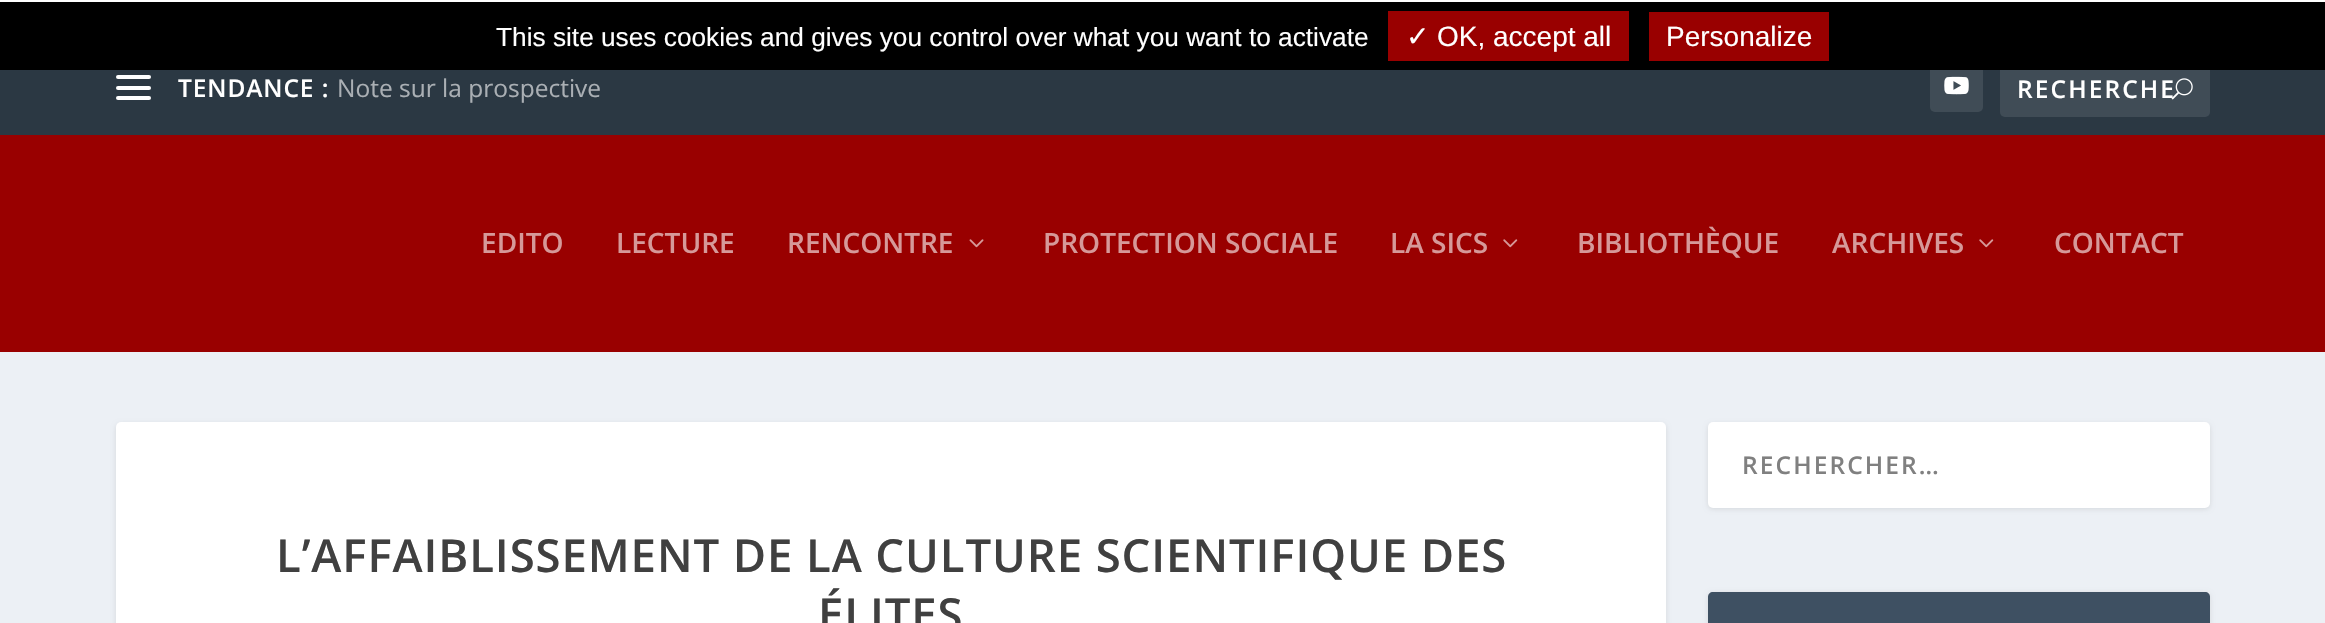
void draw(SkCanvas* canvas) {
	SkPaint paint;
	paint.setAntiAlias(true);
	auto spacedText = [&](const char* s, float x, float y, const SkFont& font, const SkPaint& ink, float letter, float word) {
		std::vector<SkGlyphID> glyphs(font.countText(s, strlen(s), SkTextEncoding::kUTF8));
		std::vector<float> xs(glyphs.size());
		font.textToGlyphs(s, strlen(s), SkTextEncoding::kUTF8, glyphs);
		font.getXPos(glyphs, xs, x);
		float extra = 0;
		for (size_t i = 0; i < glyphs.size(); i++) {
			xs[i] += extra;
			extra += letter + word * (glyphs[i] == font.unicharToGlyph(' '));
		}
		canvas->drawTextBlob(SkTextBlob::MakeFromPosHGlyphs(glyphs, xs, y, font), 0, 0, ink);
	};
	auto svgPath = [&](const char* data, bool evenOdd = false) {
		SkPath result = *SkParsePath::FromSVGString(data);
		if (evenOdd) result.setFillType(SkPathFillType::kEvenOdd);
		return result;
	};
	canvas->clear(0xffecf0f5);
	paint.setColor(0xff2b3843);
	canvas->drawRect(SkRect::MakeXYWH(0, 70, 2325, 65), paint);
	paint.setColor(0xff404c56);
	canvas->drawRoundRect(SkRect::MakeXYWH(1930, 60, 53, 52), 5, 5, paint);
	canvas->drawRoundRect(SkRect::MakeXYWH(2000, 60, 210, 57), 5, 5, paint);
	paint.setColor(0xff000000);
	canvas->drawRect(SkRect::MakeXYWH(0, 2, 2325, 68), paint);
	paint.setColor(0xffffffff);
	canvas->drawRect(SkRect::MakeXYWH(0, 0, 2325, 2), paint);
	SkFont f1(fontMgr->matchFamilyStyle("Liberation Sans", SkFontStyle::Normal()), 26.25);
	f1.setSubpixel(true);
	canvas->drawString("This site uses cookies and gives you control over what you want to activate", 496, 46, f1, paint);
	paint.setColor(0xff990000);
	canvas->drawRect(SkRect::MakeXYWH(1388, 11, 241, 50), paint);
	SkFont f2(fontMgr->matchFamilyStyle("DejaVu Sans", SkFontStyle::Normal()), 28);
	f2.setSubpixel(true);
	paint.setColor(0xffffffff);
	canvas->drawString("✓", 1406, 46, f2, paint);
	SkFont f3(fontMgr->matchFamilyStyle("Liberation Sans", SkFontStyle::Normal()), 28);
	f3.setSubpixel(true);
	canvas->drawString("OK, accept all", 1437, 46, f3, paint);
	paint.setColor(0xff990000);
	canvas->drawRect(SkRect::MakeXYWH(1649, 12, 180, 49), paint);
	paint.setColor(0xffffffff);
	canvas->drawString("Personalize", 1666, 46, f3, paint);
	canvas->drawRoundRect(SkRect::MakeXYWH(116, 75, 35, 4), 2, 2, paint);
	canvas->drawRoundRect(SkRect::MakeXYWH(116, 86, 35, 4), 2, 2, paint);
	canvas->drawRoundRect(SkRect::MakeXYWH(116, 96, 35, 4), 2, 2, paint);
	SkFont f4(fontMgr->matchFamilyStyle("Open Sans", SkFontStyle(600, SkFontStyle::kNormal_Width, SkFontStyle::kUpright_Slant)), 24.5);
	f4.setSubpixel(true);
	spacedText("TENDANCE :", 178, 97, f4, paint, 0.9, 0);
	SkFont f5(fontMgr->matchFamilyStyle("Open Sans", SkFontStyle::Normal()), 24.5);
	f5.setSubpixel(true);
	paint.setColor(0xffaaafb4);
	canvas->drawString("Note sur la prospective", 337, 97, f5, paint);
	canvas->drawImageRect(SkImages::DeferredFromEncodedData(SkData::MakeFromFileName("img1.png")), SkRect::MakeXYWH(1944, 76, 25, 19), SkSamplingOptions());
	paint.setColor(0xffffffff);
	spacedText("RECHERCHE", 2017, 98, f4, paint, 2.1, 0);
	canvas->drawImageRect(SkImages::DeferredFromEncodedData(SkData::MakeFromFileName("img2.png")), SkRect::MakeXYWH(2171, 78, 22, 22), SkSamplingOptions());
	paint.setColor(0xff990000);
	canvas->drawRect(SkRect::MakeXYWH(0, 135, 2325, 217), paint);
	SkFont f6(fontMgr->matchFamilyStyle("Open Sans", SkFontStyle(600, SkFontStyle::kNormal_Width, SkFontStyle::kUpright_Slant)), 28);
	f6.setSubpixel(true);
	paint.setColor(0xffd69999);
	canvas->drawString("EDITO", 481, 253, f6, paint);
	canvas->drawString("LECTURE", 616, 253, f6, paint);
	canvas->drawString("RENCONTRE", 787, 253, f6, paint);
	canvas->drawImageRect(SkImages::DeferredFromEncodedData(SkData::MakeFromFileName("img3.png")), SkRect::MakeXYWH(969, 239, 15, 9), SkSamplingOptions());
	canvas->drawString("PROTECTION SOCIALE", 1043, 253, f6, paint);
	canvas->drawString("LA SICS", 1390, 253, f6, paint);
	canvas->drawImageRect(SkImages::DeferredFromEncodedData(SkData::MakeFromFileName("img4.png")), SkRect::MakeXYWH(1503, 239, 15, 9), SkSamplingOptions());
	canvas->drawString("BIBLIOTHÈQUE", 1577, 253, f6, paint);
	canvas->drawString("ARCHIVES", 1832, 253, f6, paint);
	canvas->drawImageRect(SkImages::DeferredFromEncodedData(SkData::MakeFromFileName("img4.png")), SkRect::MakeXYWH(1979, 239, 15, 9), SkSamplingOptions());
	canvas->drawString("CONTACT", 2054, 253, f6, paint);
	paint.setColor(0x1a000000);
	paint.setMaskFilter(SkMaskFilter::MakeBlur(kNormal_SkBlurStyle, 2.5));
	canvas->drawRoundRect(SkRect::MakeXYWH(1708, 424, 502, 85), 5, 5, paint);
	paint.setMaskFilter(nullptr);
	paint.setColor(0xffffffff);
	canvas->drawRoundRect(SkRect::MakeXYWH(1708, 422, 502, 86), 5, 5, paint);
	paint.setColor(0xff808080);
	spacedText("RECHERCHER…", 1742, 474, f4, paint, 2.1, 0);
	paint.setColor(0x1a000000);
	paint.setMaskFilter(SkMaskFilter::MakeBlur(kNormal_SkBlurStyle, 2.5));
	canvas->drawRoundRect(SkRect::MakeXYWH(1708, 593, 502, 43), 5, 5, paint);
	paint.setMaskFilter(nullptr);
	paint.setColor(0xff3e5062);
	canvas->drawPath(svgPath("M1713 592H2205C2208 592 2210 594 2210 597V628H1708V597C1708 594 1710 592 1713 592Z"), paint);
	paint.setColor(0x1a000000);
	paint.setMaskFilter(SkMaskFilter::MakeBlur(kNormal_SkBlurStyle, 2.5));
	canvas->drawRoundRect(SkRect::MakeXYWH(116, 424, 1550, 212), 5, 5, paint);
	paint.setMaskFilter(nullptr);
	paint.setColor(0xffffffff);
	canvas->drawRoundRect(SkRect::MakeXYWH(116, 422, 1550, 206), 5, 5, paint);
	SkFont f7(fontMgr->matchFamilyStyle("Open Sans", SkFontStyle(600, SkFontStyle::kNormal_Width, SkFontStyle::kUpright_Slant)), 45.5);
	f7.setSubpixel(true);
	paint.setColor(0xff404040);
	spacedText("L’AFFAIBLISSEMENT DE LA CULTURE SCIENTIFIQUE DES", 276, 572, f7, paint, 0.9, 0);
	spacedText("ÉLITES", 818, 631, f7, paint, 0.9, 0);
}
